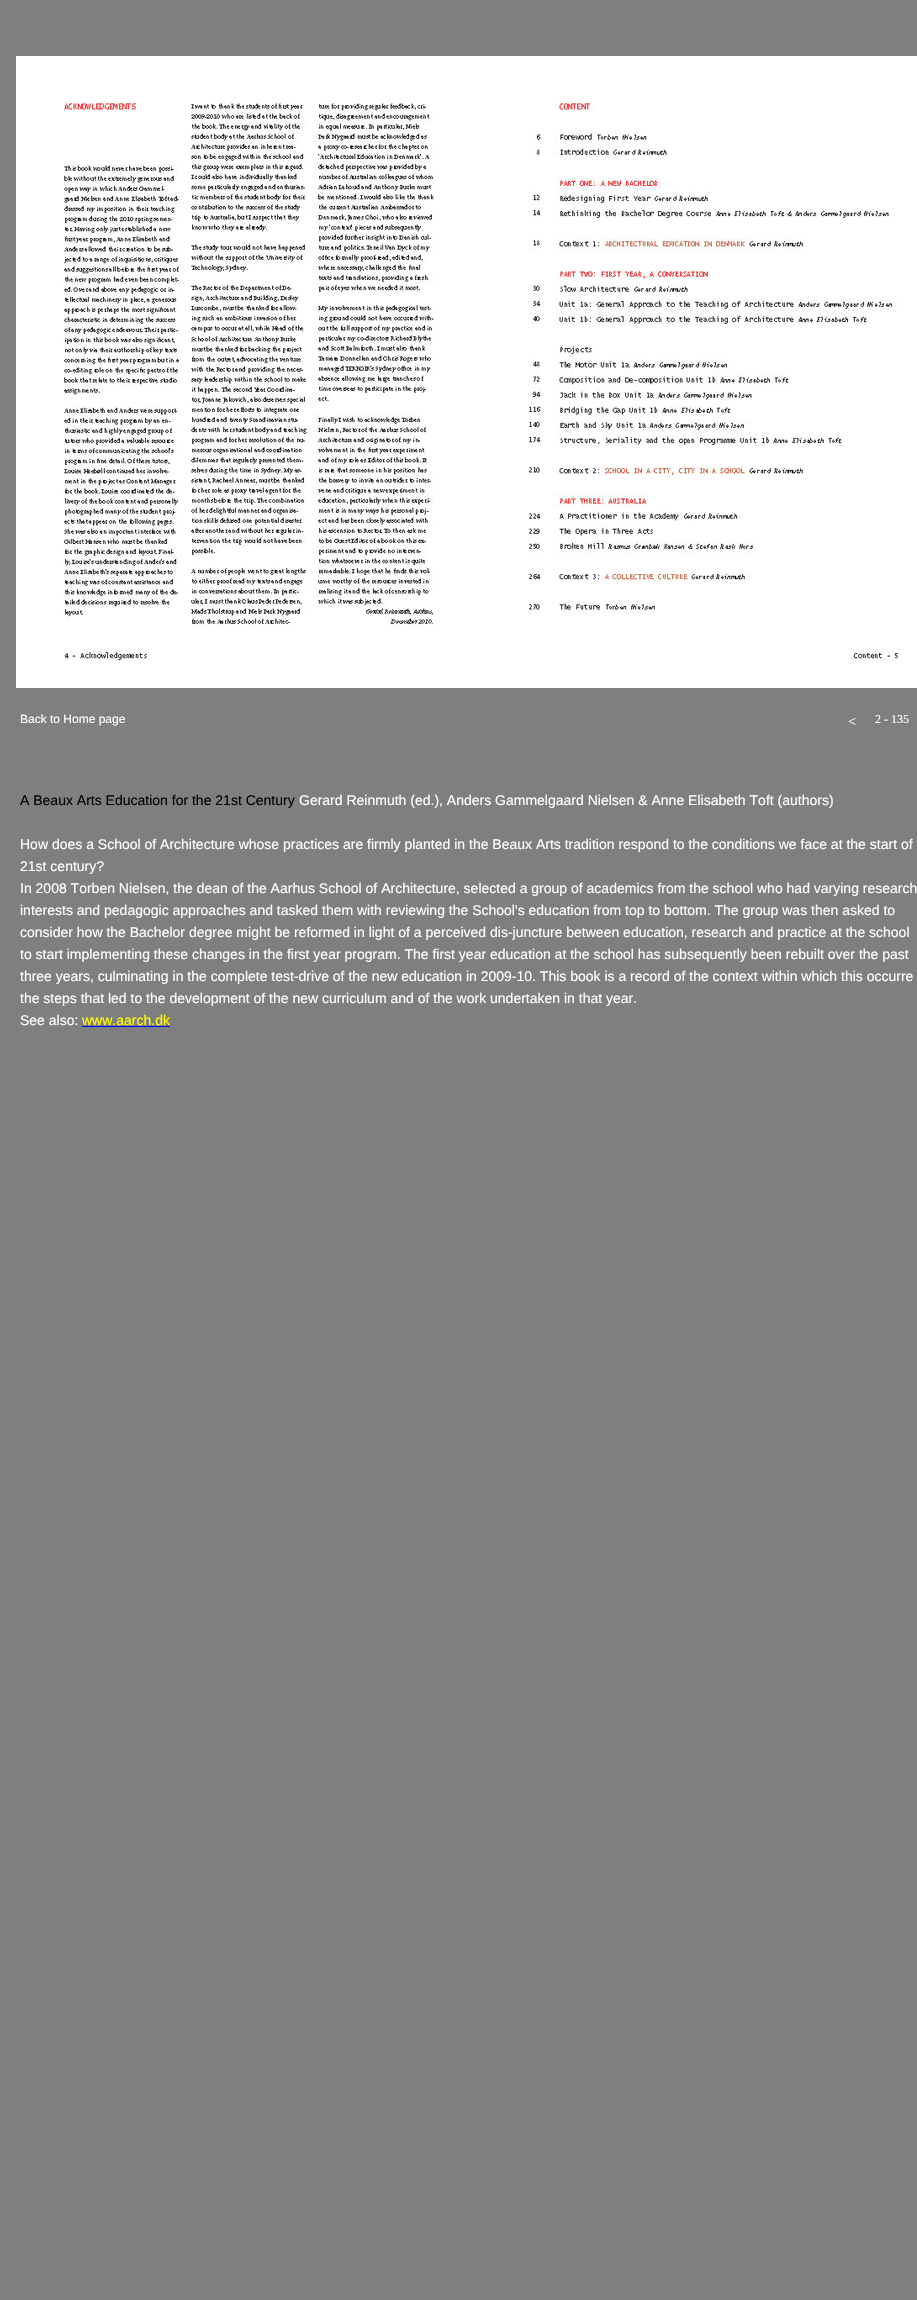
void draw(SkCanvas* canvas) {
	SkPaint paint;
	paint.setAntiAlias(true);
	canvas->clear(0xff7f7f7f);
	SkFont f1(fontMgr->matchFamilyStyle("Liberation Sans", SkFontStyle::Normal()), 12);
	f1.setSubpixel(true);
	paint.setColor(0xffffffff);
	canvas->drawString("Back to Home page", 20, 723, f1, paint);
	canvas->drawImageRect(SkImages::DeferredFromEncodedData(SkData::MakeFromFileName("img1.png")), SkRect::MakeXYWH(16, 56, 901, 632), SkSamplingOptions());
	SkFont f2(fontMgr->matchFamilyStyle("Liberation Serif", SkFontStyle::Normal()), 14);
	f2.setSubpixel(true);
	canvas->drawString("<", 848, 726, f2, paint);
	SkFont f3(fontMgr->matchFamilyStyle("Liberation Serif", SkFontStyle::Normal()), 12);
	f3.setSubpixel(true);
	canvas->drawString("2 - 135", 875, 723, f3, paint);
	SkFont f4(fontMgr->matchFamilyStyle("Liberation Sans", SkFontStyle::Normal()), 14);
	f4.setSubpixel(true);
	paint.setColor(0xff000000);
	canvas->drawString("A Beaux Arts Education for the 21st Century", 20, 805, f4, paint);
	paint.setColor(0xffffffff);
	canvas->drawString("Gerard Reinmuth (ed.), Anders Gammelgaard Nielsen & Anne Elisabeth Toft (authors)", 299, 805, f4, paint);
	canvas->drawString("How does a School of Architecture whose practices are firmly planted in the Beaux Arts tradition respond to the conditions we face at the start of", 20, 849, f4, paint);
	canvas->drawString("21st century?", 20, 871, f4, paint);
	canvas->drawString("In 2008 Torben Nielsen, the dean of the Aarhus School of Architecture, selected a group of academics from the school who had varying research", 20, 893, f4, paint);
	canvas->drawString("interests and pedagogic approaches and tasked them with reviewing the School's education from top to bottom. The group was then asked to", 20, 915, f4, paint);
	canvas->drawString("consider how the Bachelor degree might be reformed in light of a perceived dis-juncture between education, research and practice at the school", 20, 937, f4, paint);
	canvas->drawString("to start implementing these changes in the first year program. The first year education at the school has subsequently been rebuilt over the past", 20, 959, f4, paint);
	canvas->drawString("three years, culminating in the complete test-drive of the new education in 2009-10. This book is a record of the context within which this occurre", 20, 981, f4, paint);
	canvas->drawString("the steps that led to the development of the new curriculum and of the work undertaken in that year.", 20, 1003, f4, paint);
	canvas->drawString("See also:", 20, 1025, f4, paint);
	paint.setColor(0xffffff00);
	canvas->drawString("www.aarch.dk", 82, 1025, f4, paint);
	paint.setColor(0xff0000ff);
	canvas->drawRect(SkRect::MakeXYWH(82, 1026, 88, 1), paint);
}
